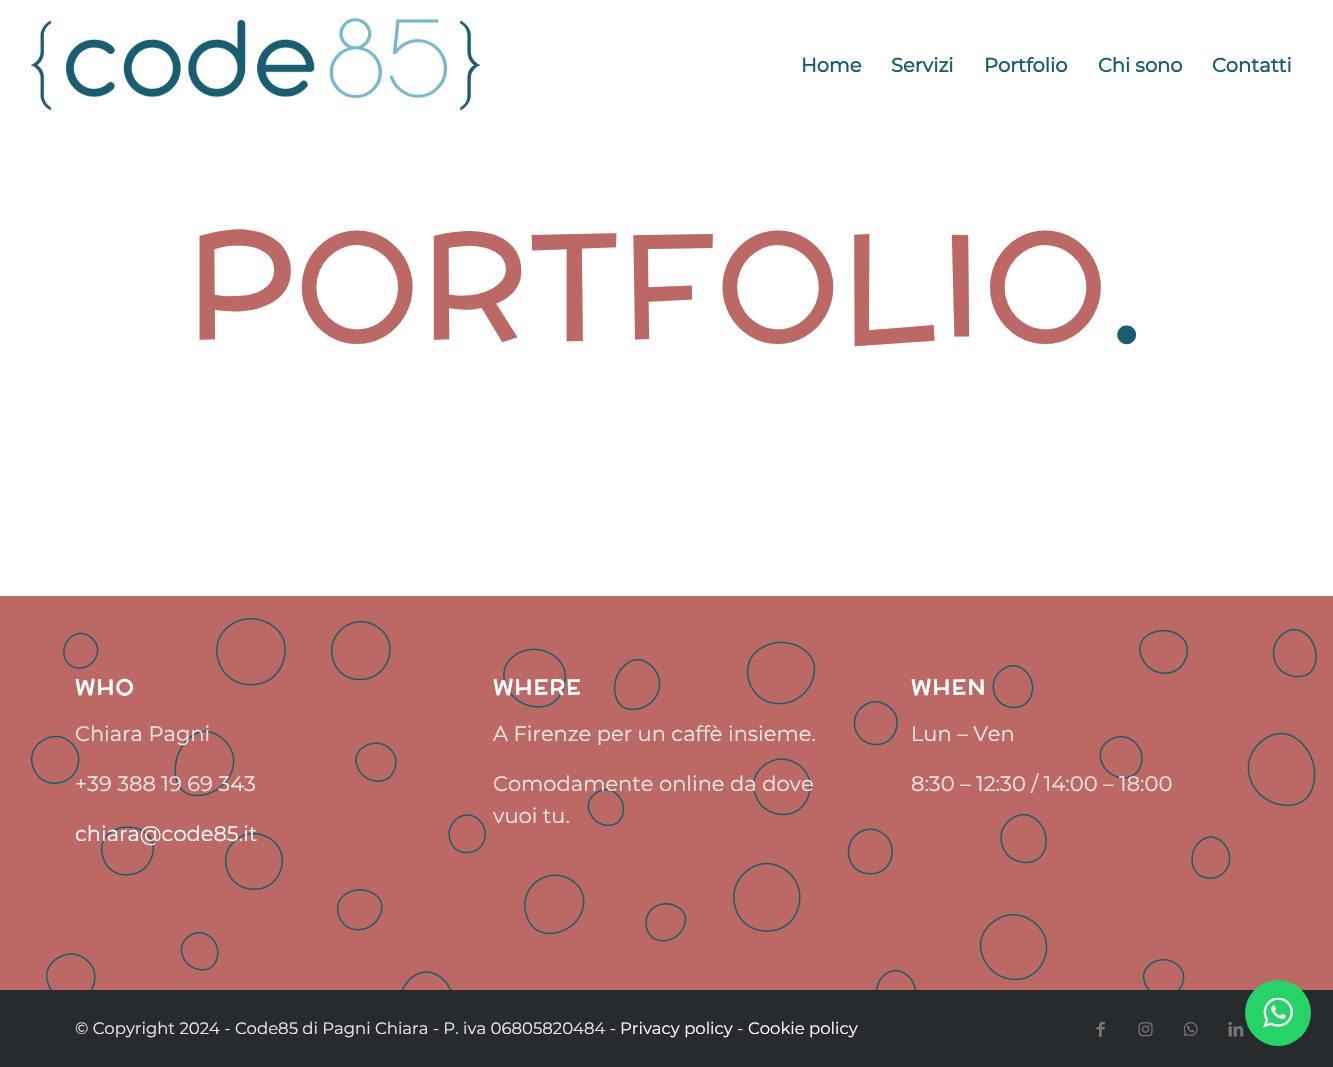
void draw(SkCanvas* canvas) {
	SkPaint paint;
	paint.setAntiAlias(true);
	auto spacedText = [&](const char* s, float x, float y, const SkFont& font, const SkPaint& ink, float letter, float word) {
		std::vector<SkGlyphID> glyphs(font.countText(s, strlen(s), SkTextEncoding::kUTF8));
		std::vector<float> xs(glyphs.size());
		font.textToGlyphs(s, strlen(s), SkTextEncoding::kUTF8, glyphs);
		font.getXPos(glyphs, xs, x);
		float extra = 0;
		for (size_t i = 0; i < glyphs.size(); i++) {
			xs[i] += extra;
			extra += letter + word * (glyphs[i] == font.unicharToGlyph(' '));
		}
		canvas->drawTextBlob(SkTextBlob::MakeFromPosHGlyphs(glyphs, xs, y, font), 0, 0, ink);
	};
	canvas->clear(0xffffffff);
	canvas->drawImageRect(SkImages::DeferredFromEncodedData(SkData::MakeFromFileName("img1.png")), SkRect::MakeXYWH(30, 18, 451, 93), SkSamplingOptions());
	SkFont f1(fontMgr->matchFamilyStyle("Montserrat", SkFontStyle::Bold()), 19.5);
	f1.setSubpixel(true);
	paint.setColor(0xff185d70);
	canvas->drawString("Home", 801, 72, f1, paint);
	canvas->drawString("Servizi", 891, 72, f1, paint);
	canvas->drawString("Portfolio", 984, 72, f1, paint);
	canvas->drawString("Chi sono", 1098, 72, f1, paint);
	canvas->drawString("Contatti", 1212, 72, f1, paint);
	SkFont f2(fontMgr->matchFamilyStyle("McLaren", SkFontStyle::Normal()), 150);
	f2.setSubpixel(true);
	paint.setColor(0xffbc6965);
	spacedText("PORTFOLIO", 186, 339, f2, paint, 1.5, 0);
	paint.setColor(0xff185d70);
	spacedText(".", 1108, 339, f2, paint, 1.5, 0);
	paint.setColor(0xffbc6965);
	canvas->drawRect(SkRect::MakeXYWH(0, 596, 1333, 394), paint);
	canvas->drawImageRect(SkImages::DeferredFromEncodedData(SkData::MakeFromFileName("img2.png")), SkRect::MakeXYWH(30, 618, 1287, 372), SkSamplingOptions());
	SkFont f3(fontMgr->matchFamilyStyle("McLaren", SkFontStyle::Bold()), 21.5);
	f3.setSubpixel(true);
	paint.setColor(0xffffffff);
	spacedText("WHO", 75, 695, f3, paint, 1.5, 0);
	SkFont f4(fontMgr->matchFamilyStyle("Montserrat", SkFontStyle(100, SkFontStyle::kNormal_Width, SkFontStyle::kUpright_Slant)), 21);
	f4.setSubpixel(true);
	paint.setColor(0xffe8e8e8);
	canvas->drawString("Chiara Pagni", 75, 741, f4, paint);
	canvas->drawString("+39 388 19 69 343", 75, 791, f4, paint);
	paint.setColor(0xffffffff);
	canvas->drawString("chiara@code85.it", 75, 841, f4, paint);
	spacedText("WHERE", 493, 695, f3, paint, 1.5, 0);
	paint.setColor(0xffe8e8e8);
	canvas->drawString("A Firenze per un caffè insieme.", 493, 741, f4, paint);
	canvas->drawString("Comodamente online da dove", 493, 791, f4, paint);
	canvas->drawString("vuoi tu.", 493, 823, f4, paint);
	paint.setColor(0xffffffff);
	spacedText("WHEN", 911, 695, f3, paint, 1.5, 0);
	paint.setColor(0xffe8e8e8);
	canvas->drawString("Lun – Ven", 911, 741, f4, paint);
	canvas->drawString("8:30 – 12:30 / 14:00 – 18:00", 911, 791, f4, paint);
	paint.setColor(0xff282b2e);
	canvas->drawRect(SkRect::MakeXYWH(0, 990, 1333, 77), paint);
	SkFont f5(fontMgr->matchFamilyStyle("Montserrat", SkFontStyle(100, SkFontStyle::kNormal_Width, SkFontStyle::kUpright_Slant)), 16.5);
	f5.setSubpixel(true);
	paint.setColor(0xffe8e8e8);
	canvas->drawString("© Copyright 2024 - Code85 di Pagni Chiara - P. iva 06805820484 -", 75, 1034, f5, paint);
	paint.setColor(0xffffffff);
	canvas->drawString("Privacy policy", 620, 1034, f5, paint);
	paint.setColor(0xffe8e8e8);
	canvas->drawString("-", 737, 1034, f5, paint);
	paint.setColor(0xffffffff);
	canvas->drawString("Cookie policy", 748, 1034, f5, paint);
	canvas->drawImageRect(SkImages::DeferredFromEncodedData(SkData::MakeFromFileName("img3.png")), SkRect::MakeXYWH(1096, 1021, 9, 16), SkSamplingOptions());
	canvas->drawImageRect(SkImages::DeferredFromEncodedData(SkData::MakeFromFileName("img4.png")), SkRect::MakeXYWH(1138, 1022, 15, 15), SkSamplingOptions());
	canvas->drawImageRect(SkImages::DeferredFromEncodedData(SkData::MakeFromFileName("img5.png")), SkRect::MakeXYWH(1183, 1022, 15, 15), SkSamplingOptions());
	canvas->drawImageRect(SkImages::DeferredFromEncodedData(SkData::MakeFromFileName("img6.png")), SkRect::MakeXYWH(1228, 1022, 16, 15), SkSamplingOptions());
	paint.setColor(0xff25d366);
	canvas->drawCircle(1278, 1013, 33, paint);
	canvas->drawImageRect(SkImages::DeferredFromEncodedData(SkData::MakeFromFileName("img7.png")), SkRect::MakeXYWH(1263, 998, 30, 30), SkSamplingOptions());
}
